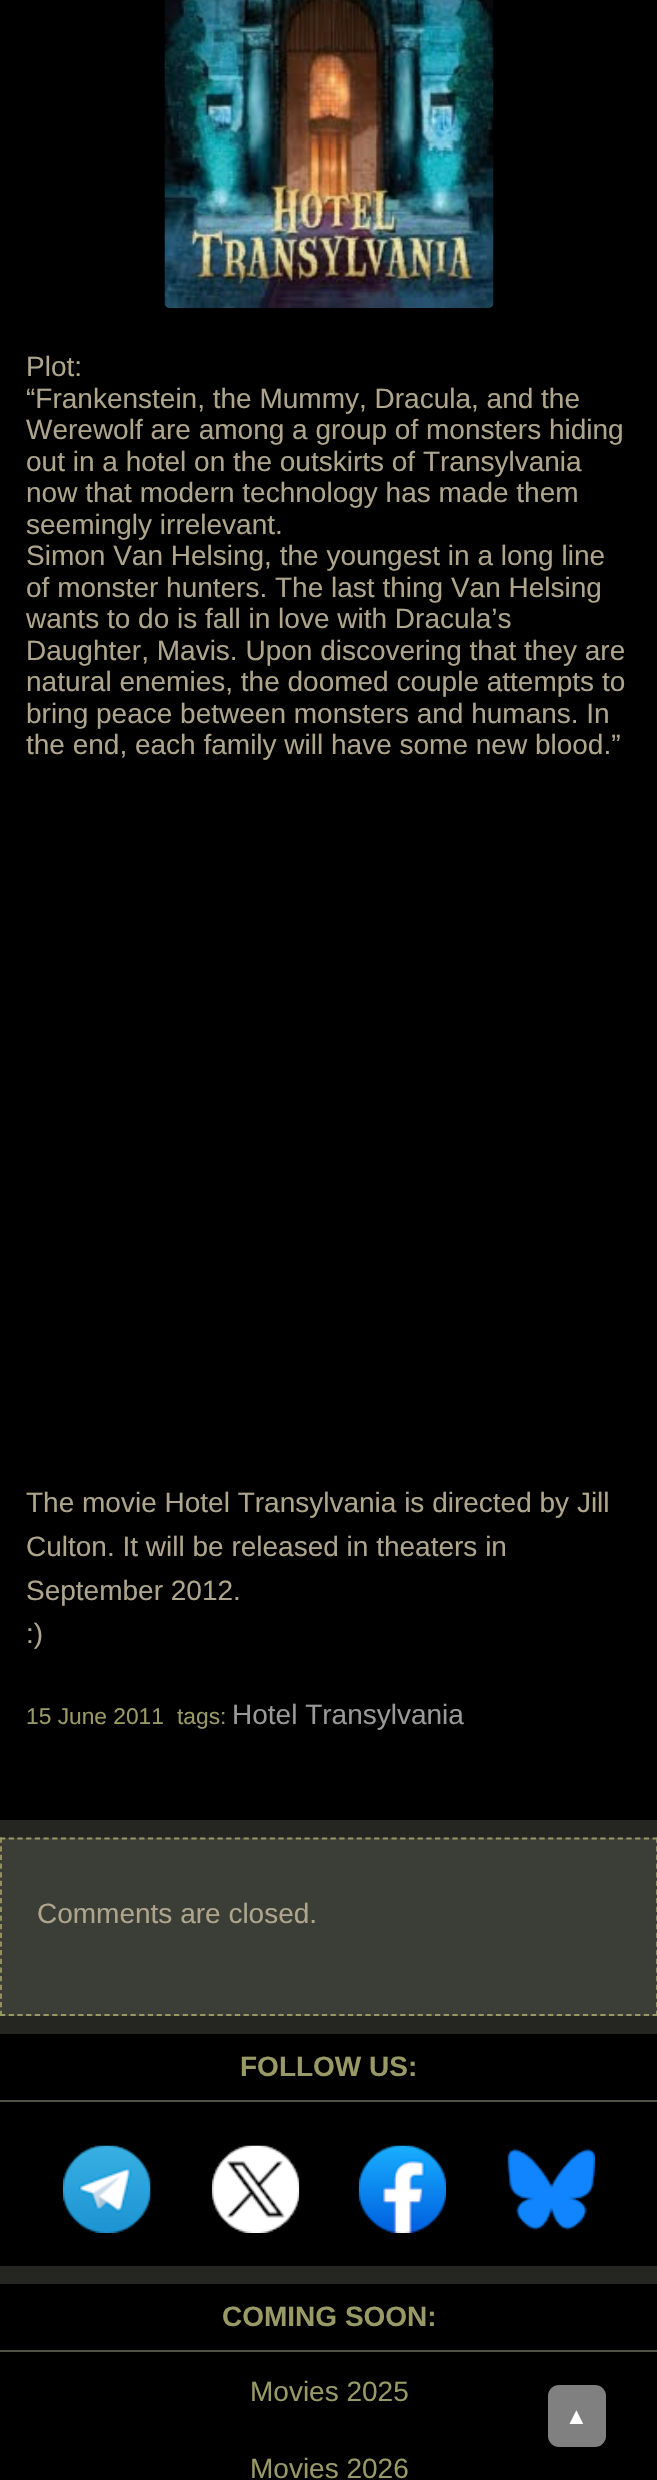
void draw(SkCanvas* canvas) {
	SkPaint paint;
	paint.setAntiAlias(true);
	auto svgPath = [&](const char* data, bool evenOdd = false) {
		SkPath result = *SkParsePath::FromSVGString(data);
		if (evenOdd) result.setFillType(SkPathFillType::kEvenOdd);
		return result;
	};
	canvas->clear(0xff252622);
	paint.setColor(0xff000000);
	canvas->drawRect(SkRect::MakeXYWH(0, 0, 657, 1820), paint);
	canvas->drawImageRect(SkImages::DeferredFromEncodedData(SkData::MakeFromFileName("img1.png")), SkRect::MakeXYWH(164, 0, 330, 308), SkSamplingOptions());
	SkFont f1(fontMgr->matchFamilyStyle("Liberation Sans", SkFontStyle::Normal()), 28);
	f1.setSubpixel(true);
	paint.setColor(0xffaea58c);
	canvas->drawString("Plot:", 26, 376, f1, paint);
	canvas->drawString("“Frankenstein, the Mummy, Dracula, and the", 26, 408, f1, paint);
	canvas->drawString("Werewolf are among a group of monsters hiding", 26, 439, f1, paint);
	canvas->drawString("out in a hotel on the outskirts of Transylvania", 26, 471, f1, paint);
	canvas->drawString("now that modern technology has made them", 26, 502, f1, paint);
	canvas->drawString("seemingly irrelevant.", 26, 534, f1, paint);
	canvas->drawString("Simon Van Helsing, the youngest in a long line", 26, 565, f1, paint);
	canvas->drawString("of monster hunters. The last thing Van Helsing", 26, 597, f1, paint);
	canvas->drawString("wants to do is fall in love with Dracula’s", 26, 628, f1, paint);
	canvas->drawString("Daughter, Mavis. Upon discovering that they are", 26, 660, f1, paint);
	canvas->drawString("natural enemies, the doomed couple attempts to", 26, 691, f1, paint);
	canvas->drawString("bring peace between monsters and humans. In", 26, 723, f1, paint);
	canvas->drawString("the end, each family will have some new blood.”", 26, 754, f1, paint);
	canvas->drawString("The movie Hotel Transylvania is directed by Jill", 26, 1512, f1, paint);
	canvas->drawString("Culton. It will be released in theaters in", 26, 1556, f1, paint);
	canvas->drawString("September 2012.", 26, 1600, f1, paint);
	canvas->drawString(":)", 26, 1643, f1, paint);
	SkFont f2(fontMgr->matchFamilyStyle("Liberation Sans", SkFontStyle::Normal()), 22.75);
	f2.setSubpixel(true);
	paint.setColor(0xff999966);
	canvas->drawString("15 June 2011", 26, 1724, f2, paint);
	canvas->drawString("tags:", 177, 1724, f2, paint);
	paint.setColor(0xff999999);
	canvas->drawString("Hotel Transylvania", 232, 1724, f1, paint);
	paint.setColor(0xff3b3d37);
	canvas->drawRect(SkRect::MakeXYWH(0, 1838, 657, 178), paint);
	paint.setStroke(true);
	paint.setStrokeWidth(1.8);
	paint.setColor(0xff999966);
	paint.setPathEffect(SkDashPathEffect::Make({{5.25f, 3.45f}}, 0));
	canvas->drawPath(svgPath("M0 1838.5H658"), paint);
	paint.setPathEffect(nullptr);
	paint.setPathEffect(SkDashPathEffect::Make({{5.25f, 3.41f}}, 0));
	canvas->drawPath(svgPath("M657 1837.5V2016"), paint);
	paint.setPathEffect(nullptr);
	paint.setPathEffect(SkDashPathEffect::Make({{5.25f, 3.45f}}, 0));
	canvas->drawPath(svgPath("M0 2015H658"), paint);
	paint.setPathEffect(nullptr);
	paint.setPathEffect(SkDashPathEffect::Make({{5.25f, 3.41f}}, 0));
	canvas->drawPath(svgPath("M1 1837.5V2016"), paint);
	paint.setPathEffect(nullptr);
	paint.setStroke(false);
	paint.setColor(0xffaea58c);
	canvas->drawString("Comments are closed.", 37, 1923, f1, paint);
	paint.setColor(0xff000000);
	canvas->drawRect(SkRect::MakeXYWH(0, 2034, 657, 232), paint);
	paint.setColor(0xff515144);
	canvas->drawRect(SkRect::MakeXYWH(0, 2100, 657, 2), paint);
	SkFont f3(fontMgr->matchFamilyStyle("Liberation Sans", SkFontStyle::Bold()), 28);
	f3.setSubpixel(true);
	paint.setColor(0xff999966);
	canvas->drawString("FOLLOW US:", 240, 2076, f3, paint);
	canvas->drawImageRect(SkImages::DeferredFromEncodedData(SkData::MakeFromFileName("img2.png")), SkRect::MakeXYWH(63, 2145, 88, 88), SkSamplingOptions());
	canvas->drawImageRect(SkImages::DeferredFromEncodedData(SkData::MakeFromFileName("img3.png")), SkRect::MakeXYWH(211, 2145, 89, 88), SkSamplingOptions());
	canvas->drawImageRect(SkImages::DeferredFromEncodedData(SkData::MakeFromFileName("img4.png")), SkRect::MakeXYWH(358, 2145, 89, 88), SkSamplingOptions());
	canvas->drawImageRect(SkImages::DeferredFromEncodedData(SkData::MakeFromFileName("img5.png")), SkRect::MakeXYWH(507, 2148, 88, 82), SkSamplingOptions());
	paint.setColor(0xff000000);
	canvas->drawRect(SkRect::MakeXYWH(0, 2284, 657, 196), paint);
	paint.setColor(0xff515144);
	canvas->drawRect(SkRect::MakeXYWH(0, 2350, 657, 2), paint);
	paint.setColor(0xff999966);
	canvas->drawString("COMING SOON:", 222, 2326, f3, paint);
	canvas->drawString("Movies 2025", 250, 2401, f1, paint);
	canvas->drawString("Movies 2026", 250, 2478, f1, paint);
	paint.setColor(0xff808080);
	canvas->drawRoundRect(SkRect::MakeXYWH(548, 2385, 58, 62), 11, 11, paint);
	SkFont f4(fontMgr->matchFamilyStyle("Liberation Sans", SkFontStyle::Normal()), 23);
	f4.setSubpixel(true);
	paint.setColor(0xffffffff);
	canvas->drawString("▲", 565, 2424, f4, paint);
}
